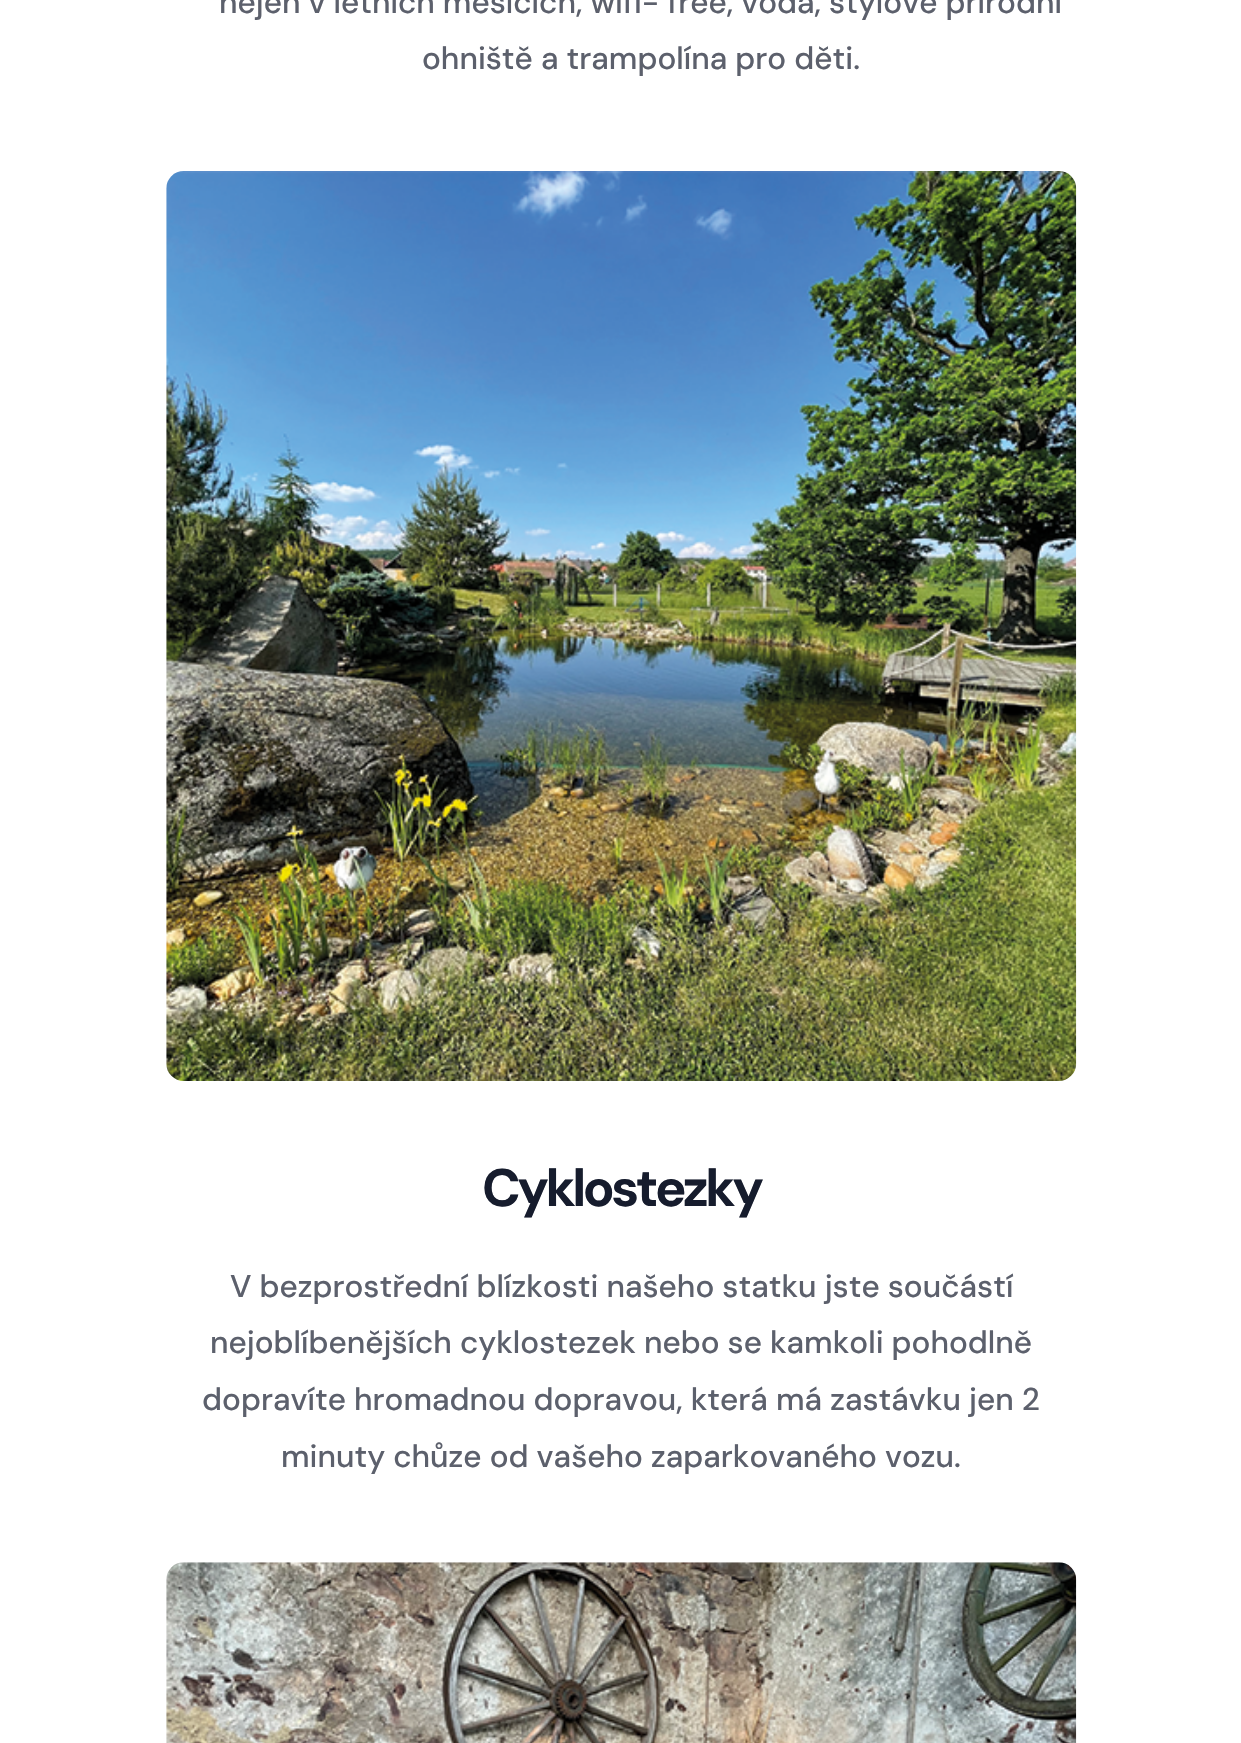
void draw(SkCanvas* canvas) {
	SkPaint paint;
	paint.setAntiAlias(true);
	auto spacedText = [&](const char* s, float x, float y, const SkFont& font, const SkPaint& ink, float letter, float word) {
		std::vector<SkGlyphID> glyphs(font.countText(s, strlen(s), SkTextEncoding::kUTF8));
		std::vector<float> xs(glyphs.size());
		font.textToGlyphs(s, strlen(s), SkTextEncoding::kUTF8, glyphs);
		font.getXPos(glyphs, xs, x);
		float extra = 0;
		for (size_t i = 0; i < glyphs.size(); i++) {
			xs[i] += extra;
			extra += letter + word * (glyphs[i] == font.unicharToGlyph(' '));
		}
		canvas->drawTextBlob(SkTextBlob::MakeFromPosHGlyphs(glyphs, xs, y, font), 0, 0, ink);
	};
	canvas->clear(0xffffffff);
	SkFont f1(fontMgr->matchFamilyStyle("DM Sans", SkFontStyle(500, SkFontStyle::kNormal_Width, SkFontStyle::kUpright_Slant)), 31.5);
	f1.setSubpixel(true);
	paint.setColor(0xff5c606c);
	canvas->drawString("nejen v letních měsících, wifi- free, voda, stylové přírodní", 219, 13, f1, paint);
	canvas->drawString("ohniště a trampolína pro děti.", 422, 69, f1, paint);
	canvas->drawImageRect(SkImages::DeferredFromEncodedData(SkData::MakeFromFileName("img1.png")), SkRect::MakeXYWH(166, 171, 911, 910), SkSamplingOptions());
	SkFont f2(fontMgr->matchFamilyStyle("DM Sans", SkFontStyle::Bold()), 52.5);
	f2.setSubpixel(true);
	paint.setColor(0xff161c2d);
	spacedText("Cyklostezky", 482, 1206, f2, paint, -3.5, 0);
	paint.setColor(0xff5c606c);
	canvas->drawString("V bezprostřední blízkosti našeho statku jste součástí", 230, 1297, f1, paint);
	canvas->drawString("nejoblíbenějších cyklostezek nebo se kamkoli pohodlně", 210, 1353, f1, paint);
	canvas->drawString("dopravíte hromadnou dopravou, která má zastávku jen 2", 202, 1410, f1, paint);
	canvas->drawString("minuty chůze od vašeho zaparkovaného vozu.", 281, 1467, f1, paint);
	canvas->drawImageRect(SkImages::DeferredFromEncodedData(SkData::MakeFromFileName("img2.png")), SkRect::MakeXYWH(166, 1562, 911, 181), SkSamplingOptions());
}
